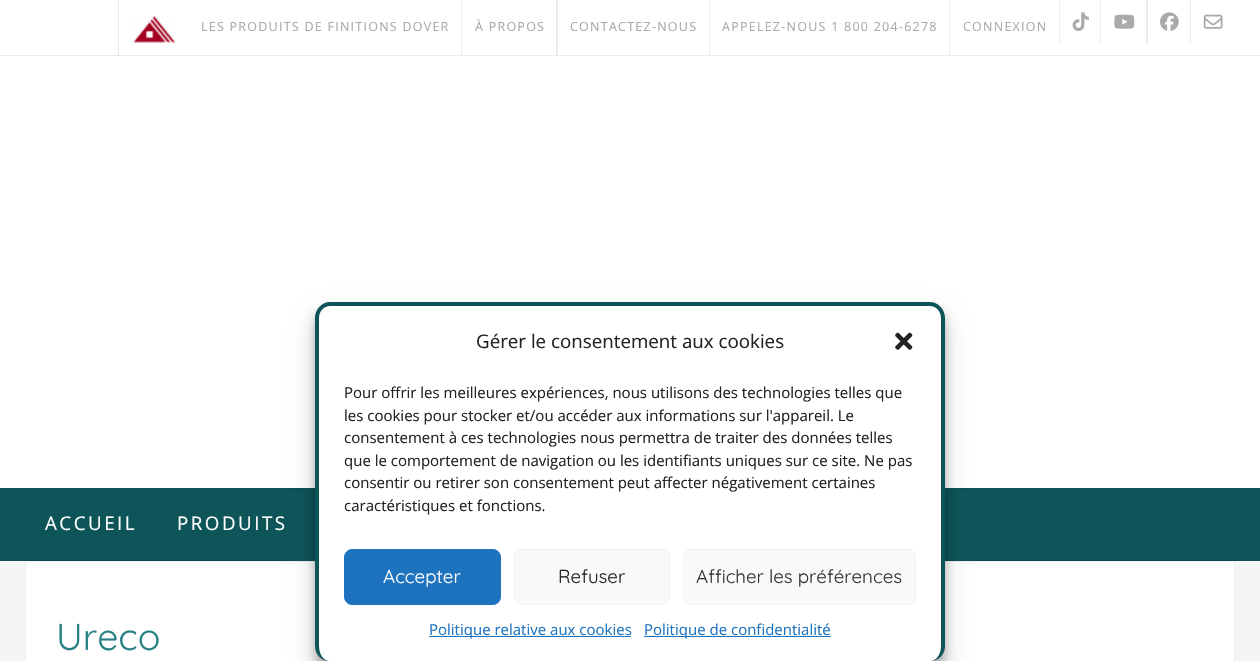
void draw(SkCanvas* canvas) {
	SkPaint paint;
	paint.setAntiAlias(true);
	auto spacedText = [&](const char* s, float x, float y, const SkFont& font, const SkPaint& ink, float letter, float word) {
		std::vector<SkGlyphID> glyphs(font.countText(s, strlen(s), SkTextEncoding::kUTF8));
		std::vector<float> xs(glyphs.size());
		font.textToGlyphs(s, strlen(s), SkTextEncoding::kUTF8, glyphs);
		font.getXPos(glyphs, xs, x);
		float extra = 0;
		for (size_t i = 0; i < glyphs.size(); i++) {
			xs[i] += extra;
			extra += letter + word * (glyphs[i] == font.unicharToGlyph(' '));
		}
		canvas->drawTextBlob(SkTextBlob::MakeFromPosHGlyphs(glyphs, xs, y, font), 0, 0, ink);
	};
	auto svgPath = [&](const char* data, bool evenOdd = false) {
		SkPath result = *SkParsePath::FromSVGString(data);
		if (evenOdd) result.setFillType(SkPathFillType::kEvenOdd);
		return result;
	};
	canvas->clear(0xfff5f5f5);
	paint.setColor(0xffffffff);
	canvas->drawRect(SkRect::MakeXYWH(0, 0, 1260, 55), paint);
	paint.setColor(0xffebebeb);
	canvas->drawRect(SkRect::MakeXYWH(0, 55, 1260, 1), paint);
	canvas->drawRect(SkRect::MakeXYWH(118, 0, 1, 56), paint);
	paint.setColor(0xffd8d8d8);
	canvas->drawRect(SkRect::MakeXYWH(118, 55, 1, 1), paint);
	canvas->drawImageRect(SkImages::DeferredFromEncodedData(SkData::MakeFromFileName("img1.png")), SkRect::MakeXYWH(133, 16, 43, 27), SkSamplingOptions());
	SkFont f1(fontMgr->matchFamilyStyle("Open Sans", SkFontStyle::Normal()), 12.5);
	f1.setSubpixel(true);
	paint.setColor(0xffaaaaaa);
	spacedText("LES PRODUITS DE FINITIONS DOVER", 201, 31, f1, paint, 1.25, 0);
	paint.setColor(0xffebebeb);
	canvas->drawRect(SkRect::MakeXYWH(461, 0, 1, 55), paint);
	paint.setColor(0xffaaaaaa);
	spacedText("À PROPOS", 475, 31, f1, paint, 1.25, 0);
	paint.setColor(0xffebebeb);
	canvas->drawRect(SkRect::MakeXYWH(556, 0, 2, 55), paint);
	paint.setColor(0xffaaaaaa);
	spacedText("CONTACTEZ-NOUS", 570, 31, f1, paint, 1.25, 0);
	paint.setColor(0xffebebeb);
	canvas->drawRect(SkRect::MakeXYWH(709, 0, 1, 55), paint);
	paint.setColor(0xffaaaaaa);
	spacedText("APPELEZ-NOUS 1 800 204-6278", 722, 31, f1, paint, 1.25, 0);
	paint.setColor(0xffebebeb);
	canvas->drawRect(SkRect::MakeXYWH(949, 0, 1, 55), paint);
	paint.setColor(0xffaaaaaa);
	spacedText("CONNEXION", 963, 31, f1, paint, 1.25, 0);
	paint.setColor(0xffebebeb);
	canvas->drawPath(svgPath("M1059 0V44H1100H1060V0Z"), paint);
	canvas->drawImageRect(SkImages::DeferredFromEncodedData(SkData::MakeFromFileName("img2.png")), SkRect::MakeXYWH(1072, 12, 17, 19), SkSamplingOptions());
	canvas->drawPath(svgPath("M1100 0V44H1146H1101V0Z"), paint);
	canvas->drawImageRect(SkImages::DeferredFromEncodedData(SkData::MakeFromFileName("img3.png")), SkRect::MakeXYWH(1114, 14, 21, 15), SkSamplingOptions());
	canvas->drawPath(svgPath("M1146 0V44H1190H1148V0Z"), paint);
	canvas->drawImageRect(SkImages::DeferredFromEncodedData(SkData::MakeFromFileName("img4.png")), SkRect::MakeXYWH(1160, 12, 19, 19), SkSamplingOptions());
	canvas->drawPath(svgPath("M1190 0V44H1234H1191V0Z"), paint);
	canvas->drawImageRect(SkImages::DeferredFromEncodedData(SkData::MakeFromFileName("img5.png")), SkRect::MakeXYWH(1203, 14, 20, 15), SkSamplingOptions());
	paint.setColor(0xffffffff);
	canvas->drawRect(SkRect::MakeXYWH(0, 56, 1260, 432), paint);
	paint.setColor(0xff0e5559);
	canvas->drawRect(SkRect::MakeXYWH(0, 489, 1260, 71), paint);
	paint.setColor(0xff0d4e52);
	canvas->drawRect(SkRect::MakeXYWH(0, 488, 1260, 1), paint);
	canvas->drawRect(SkRect::MakeXYWH(0, 560, 1260, 1), paint);
	SkFont f2(fontMgr->matchFamilyStyle("Open Sans", SkFontStyle::Normal()), 18.75);
	f2.setSubpixel(true);
	paint.setColor(0xffffffff);
	spacedText("ACCUEIL", 45, 530, f2, paint, 2.5, 0);
	spacedText("PRODUITS", 177, 530, f2, paint, 2.5, 0);
	canvas->drawRect(SkRect::MakeXYWH(25.5, 561.5, 1209, 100), paint);
	paint.setStroke(true);
	paint.setStrokeWidth(1);
	paint.setColor(0xfff0f0f0);
	canvas->drawRect(SkRect::MakeXYWH(25.5, 561.5, 1209, 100), paint);
	SkFont f3(fontMgr->matchFamilyStyle("Quicksand", SkFontStyle(300, SkFontStyle::kNormal_Width, SkFontStyle::kUpright_Slant)), 37.5);
	f3.setSubpixel(true);
	paint.setStroke(false);
	paint.setColor(0xff278184);
	canvas->drawString("Ureco", 56, 650, f3, paint);
	paint.setColor(0x3b000000);
	paint.setMaskFilter(SkMaskFilter::MakeBlur(kNormal_SkBlurStyle, 4));
	canvas->drawRoundRect(SkRect::MakeXYWH(315, 310, 630, 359), 15, 15, paint);
	paint.setMaskFilter(nullptr);
	paint.setColor(0x30000000);
	paint.setMaskFilter(SkMaskFilter::MakeBlur(kNormal_SkBlurStyle, 12.5));
	canvas->drawRoundRect(SkRect::MakeXYWH(315, 315, 630, 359), 15, 15, paint);
	paint.setMaskFilter(nullptr);
	paint.setColor(0xffffffff);
	canvas->drawPath(svgPath("M330 306H930C936 306 941 311 941 318V646C941 655 936 661 930 661H330C324 661 319 655 319 646V318C319 311 324 306 330 306Z"), paint);
	paint.setColor(0xff0e5559);
	canvas->drawPath(svgPath("M330 302H930C938 302 945 309 945 318V646C945 655 938 661 930 661H330C322 661 315 655 315 646V318C315 309 322 302 330 302ZM330 306H930C936 306 941 311 941 318V646C941 655 936 661 930 661H330C324 661 319 655 319 646V318C319 311 324 306 330 306Z", true), paint);
	paint.setColor(0xff222222);
	canvas->drawString("Gérer le consentement aux cookies", 476, 348, f2, paint);
	canvas->drawImageRect(SkImages::DeferredFromEncodedData(SkData::MakeFromFileName("img6.png")), SkRect::MakeXYWH(895, 332, 18, 18), SkSamplingOptions());
	SkFont f4(fontMgr->matchFamilyStyle("Open Sans", SkFontStyle::Normal()), 15);
	f4.setSubpixel(true);
	canvas->drawString("Pour offrir les meilleures expériences, nous utilisons des technologies telles que", 344, 398, f4, paint);
	canvas->drawString("les cookies pour stocker et/ou accéder aux informations sur l'appareil. Le", 344, 421, f4, paint);
	canvas->drawString("consentement à ces technologies nous permettra de traiter des données telles", 344, 443, f4, paint);
	canvas->drawString("que le comportement de navigation ou les identifiants uniques sur ce site. Ne pas", 344, 466, f4, paint);
	canvas->drawString("consentir ou retirer son consentement peut affecter négativement certaines", 344, 488, f4, paint);
	canvas->drawString("caractéristiques et fonctions.", 344, 511, f4, paint);
	paint.setColor(0xff1e73be);
	canvas->drawRoundRect(SkRect::MakeXYWH(344.5, 549.5, 156, 55), 7.5, 7.5, paint);
	paint.setStroke(true);
	canvas->drawRoundRect(SkRect::MakeXYWH(344.5, 549.5, 156, 55), 7.5, 7.5, paint);
	SkFont f5(fontMgr->matchFamilyStyle("Quicksand", SkFontStyle(300, SkFontStyle::kNormal_Width, SkFontStyle::kUpright_Slant)), 18.75);
	f5.setSubpixel(true);
	paint.setStroke(false);
	paint.setColor(0xffffffff);
	canvas->drawString("Accepter", 383, 583, f5, paint);
	paint.setColor(0xfff9f9f9);
	canvas->drawRoundRect(SkRect::MakeXYWH(514.5, 549.5, 155, 55), 7.5, 7.5, paint);
	paint.setStroke(true);
	paint.setColor(0xfff2f2f2);
	canvas->drawRoundRect(SkRect::MakeXYWH(514.5, 549.5, 155, 55), 7.5, 7.5, paint);
	paint.setStroke(false);
	paint.setColor(0xff222222);
	canvas->drawString("Refuser", 558, 583, f5, paint);
	paint.setColor(0xfff9f9f9);
	canvas->drawRoundRect(SkRect::MakeXYWH(683.5, 549.5, 232, 55), 7.5, 7.5, paint);
	paint.setStroke(true);
	paint.setColor(0xfff2f2f2);
	canvas->drawRoundRect(SkRect::MakeXYWH(683.5, 549.5, 232, 55), 7.5, 7.5, paint);
	paint.setStroke(false);
	paint.setColor(0xff333333);
	canvas->drawString("Afficher les préférences", 696, 583, f5, paint);
	paint.setColor(0xff1e73be);
	canvas->drawRect(SkRect::MakeXYWH(429, 636, 202, 1), paint);
	canvas->drawString("Politique relative aux cookies", 429, 635, f4, paint);
	canvas->drawRect(SkRect::MakeXYWH(644, 636, 187, 1), paint);
	canvas->drawString("Politique de confidentialité", 644, 635, f4, paint);
}
